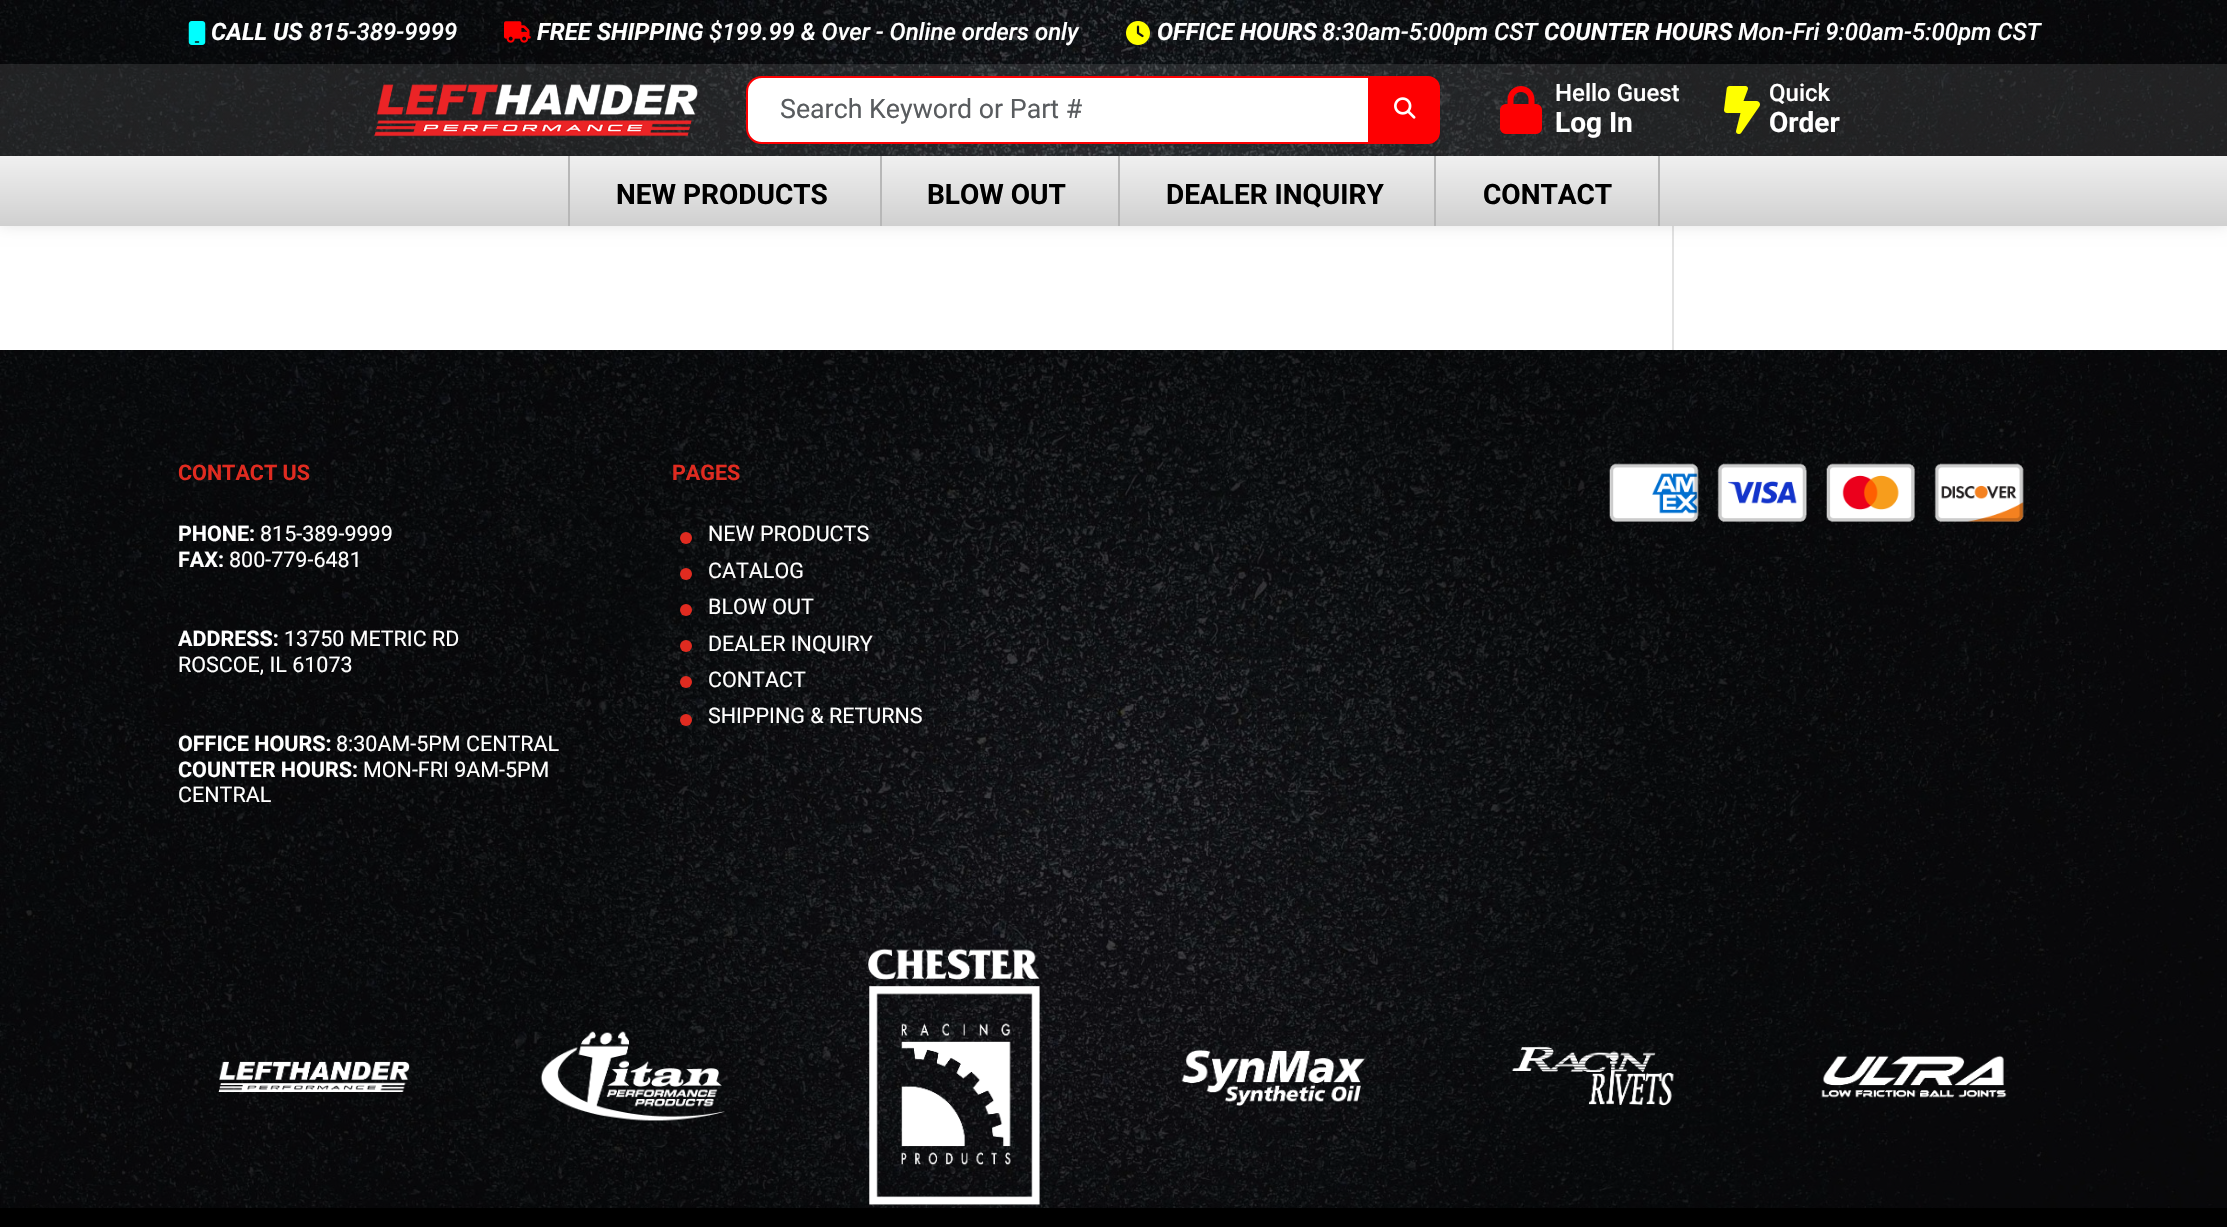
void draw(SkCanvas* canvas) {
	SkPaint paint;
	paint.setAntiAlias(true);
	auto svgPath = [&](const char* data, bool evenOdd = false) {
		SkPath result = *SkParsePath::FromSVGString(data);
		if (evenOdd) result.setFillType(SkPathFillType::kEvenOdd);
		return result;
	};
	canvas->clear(0xffffffff);
	paint.setColor(0xffe2e2e2);
	canvas->drawRect(SkRect::MakeXYWH(1672, 226, 2, 124), paint);
	paint.setColor(0x1a000000);
	paint.setMaskFilter(SkMaskFilter::MakeBlur(kNormal_SkBlurStyle, 7));
	canvas->drawRect(SkRect::MakeXYWH(0, 0, 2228, 226), paint);
	paint.setMaskFilter(nullptr);
	canvas->drawImageRect(SkImages::DeferredFromEncodedData(SkData::MakeFromFileName("img1.png")), SkRect::MakeXYWH(0, 0, 2227, 156), SkSamplingOptions());
	canvas->drawImageRect(SkImages::DeferredFromEncodedData(SkData::MakeFromFileName("img2.png")), SkRect::MakeXYWH(188, 21, 18, 24), SkSamplingOptions());
	SkFont f1(fontMgr->matchFamilyStyle("Roboto", SkFontStyle::BoldItalic()), 24);
	f1.setSubpixel(true);
	paint.setColor(0xffffffff);
	canvas->drawString("CALL US", 211, 40, f1, paint);
	SkFont f2(fontMgr->matchFamilyStyle("Roboto", SkFontStyle(500, SkFontStyle::kNormal_Width, SkFontStyle::kItalic_Slant)), 24);
	f2.setSubpixel(true);
	canvas->drawString("815-389-9999", 309, 40, f2, paint);
	canvas->drawImageRect(SkImages::DeferredFromEncodedData(SkData::MakeFromFileName("img3.png")), SkRect::MakeXYWH(504, 21, 27, 22), SkSamplingOptions());
	canvas->drawString("FREE SHIPPING", 537, 40, f1, paint);
	canvas->drawString("$199.99 & Over - Online orders only", 709, 40, f2, paint);
	canvas->drawImageRect(SkImages::DeferredFromEncodedData(SkData::MakeFromFileName("img4.png")), SkRect::MakeXYWH(1126, 21, 24, 24), SkSamplingOptions());
	canvas->drawString("OFFICE HOURS", 1157, 40, f1, paint);
	canvas->drawString("8:30am-5:00pm CST", 1322, 40, f2, paint);
	canvas->drawString("COUNTER HOURS", 1544, 40, f1, paint);
	canvas->drawString("Mon-Fri 9:00am-5:00pm CST", 1738, 40, f2, paint);
	paint.setColor(0x1affffff);
	canvas->drawRect(SkRect::MakeXYWH(0, 64, 2227, 92), paint);
	canvas->drawImageRect(SkImages::DeferredFromEncodedData(SkData::MakeFromFileName("img5.png")), SkRect::MakeXYWH(374, 84, 324, 53), SkSamplingOptions());
	paint.setColor(0xffffffff);
	canvas->drawPath(svgPath("M762 77H1369V143H762C753.5 143 747 136.5 747 128V92C747 83.5 753.5 77 762 77Z"), paint);
	paint.setStroke(true);
	paint.setStrokeWidth(2);
	paint.setColor(0xfffe0002);
	canvas->drawPath(svgPath("M762 77H1369V143H762C753.5 143 747 136.5 747 128V92C747 83.5 753.5 77 762 77Z"), paint);
	SkFont f3(fontMgr->matchFamilyStyle("Roboto", SkFontStyle::Normal()), 26.75);
	f3.setSubpixel(true);
	paint.setStroke(false);
	paint.setColor(0xff595c5f);
	canvas->drawString("Search Keyword or Part #", 780, 118, f3, paint);
	paint.setColor(0xfffe0002);
	canvas->drawPath(svgPath("M1369 77H1428C1434 77 1439 82 1439 88V132C1439 138 1434 143 1428 143H1369Z"), paint);
	paint.setStroke(true);
	canvas->drawPath(svgPath("M1369 77H1428C1434 77 1439 82 1439 88V132C1439 138 1434 143 1428 143H1369Z"), paint);
	canvas->drawImageRect(SkImages::DeferredFromEncodedData(SkData::MakeFromFileName("img6.png")), SkRect::MakeXYWH(1394, 97, 22, 22), SkSamplingOptions());
	canvas->drawImageRect(SkImages::DeferredFromEncodedData(SkData::MakeFromFileName("img7.png")), SkRect::MakeXYWH(1500, 86, 42, 48), SkSamplingOptions());
	SkFont f4(fontMgr->matchFamilyStyle("Roboto", SkFontStyle(500, SkFontStyle::kNormal_Width, SkFontStyle::kUpright_Slant)), 24);
	f4.setSubpixel(true);
	paint.setStroke(false);
	paint.setColor(0xffffffff);
	canvas->drawString("Hello Guest", 1555, 101, f4, paint);
	SkFont f5(fontMgr->matchFamilyStyle("Roboto", SkFontStyle::Bold()), 28);
	f5.setSubpixel(true);
	canvas->drawString("Log In", 1555, 132, f5, paint);
	canvas->drawImageRect(SkImages::DeferredFromEncodedData(SkData::MakeFromFileName("img8.png")), SkRect::MakeXYWH(1724, 86, 36, 48), SkSamplingOptions());
	canvas->drawString("Quick", 1769, 101, f4, paint);
	canvas->drawString("Order", 1769, 132, f5, paint);
	{
		const SkColor colors[] = {0xfff0f0f0, 0xffd0d0d0};
		const float stops[] = {0, 1};
		const SkPoint ends[] = {{1114, 156}, {1114, 226}};
		paint.setShader(SkGradientShader::MakeLinear(ends, colors, stops, 2, SkTileMode::kClamp));
		paint.setAlpha(255);
	}
	canvas->drawRect(SkRect::MakeXYWH(0, 156, 2227, 70), paint);
	paint.setShader(nullptr);
	paint.setColor(0xffb7b7b7);
	canvas->drawRect(SkRect::MakeXYWH(568, 156, 2, 70), paint);
	paint.setColor(0xff000000);
	canvas->drawString("NEW PRODUCTS", 616, 204, f5, paint);
	paint.setColor(0xffb7b7b7);
	canvas->drawRect(SkRect::MakeXYWH(880, 156, 2, 70), paint);
	paint.setColor(0xff000000);
	canvas->drawString("BLOW OUT", 927, 204, f5, paint);
	paint.setColor(0xffb7b7b7);
	canvas->drawRect(SkRect::MakeXYWH(1118, 156, 2, 70), paint);
	paint.setColor(0xff000000);
	canvas->drawString("DEALER INQUIRY", 1166, 204, f5, paint);
	paint.setColor(0xffb7b7b7);
	canvas->drawRect(SkRect::MakeXYWH(1658, 156, 2, 70), paint);
	canvas->drawRect(SkRect::MakeXYWH(1434, 156, 2, 70), paint);
	paint.setColor(0xff000000);
	canvas->drawString("CONTACT", 1483, 204, f5, paint);
	canvas->drawImageRect(SkImages::DeferredFromEncodedData(SkData::MakeFromFileName("img9.png")), SkRect::MakeXYWH(0, 350, 2227, 858), SkSamplingOptions());
	SkFont f6(fontMgr->matchFamilyStyle("Roboto", SkFontStyle::Bold()), 21.5);
	f6.setSubpixel(true);
	paint.setColor(0xffe02b20);
	canvas->drawString("CONTACT US", 178, 480, f6, paint);
	paint.setColor(0xffffffff);
	canvas->drawString("PHONE:", 178, 541, f6, paint);
	SkFont f7(fontMgr->matchFamilyStyle("Roboto", SkFontStyle::Normal()), 21.5);
	f7.setSubpixel(true);
	canvas->drawString("815-389-9999", 260, 541, f7, paint);
	canvas->drawString("FAX:", 178, 567, f6, paint);
	canvas->drawString("800-779-6481", 229, 567, f7, paint);
	canvas->drawString("ADDRESS:", 178, 646, f6, paint);
	canvas->drawString("13750 METRIC RD", 284, 646, f7, paint);
	canvas->drawString("ROSCOE, IL 61073", 178, 672, f7, paint);
	canvas->drawString("OFFICE HOURS:", 178, 751, f6, paint);
	canvas->drawString("8:30AM-5PM CENTRAL", 336, 751, f7, paint);
	canvas->drawString("COUNTER HOURS:", 178, 777, f6, paint);
	canvas->drawString("MON-FRI 9AM-5PM", 363, 777, f7, paint);
	canvas->drawString("CENTRAL", 178, 802, f7, paint);
	paint.setColor(0xffe02b20);
	canvas->drawString("PAGES", 672, 480, f6, paint);
	canvas->drawCircle(686, 538, 6, paint);
	paint.setColor(0xffffffff);
	canvas->drawString("NEW PRODUCTS", 708, 541, f7, paint);
	paint.setColor(0xffe02b20);
	canvas->drawCircle(686, 574, 6, paint);
	paint.setColor(0xffffffff);
	canvas->drawString("CATALOG", 708, 578, f7, paint);
	paint.setColor(0xffe02b20);
	canvas->drawCircle(686, 610, 6, paint);
	paint.setColor(0xffffffff);
	canvas->drawString("BLOW OUT", 708, 614, f7, paint);
	paint.setColor(0xffe02b20);
	canvas->drawCircle(686, 646, 6, paint);
	paint.setColor(0xffffffff);
	canvas->drawString("DEALER INQUIRY", 708, 651, f7, paint);
	paint.setColor(0xffe02b20);
	canvas->drawCircle(686, 682, 6, paint);
	paint.setColor(0xffffffff);
	canvas->drawString("CONTACT", 708, 687, f7, paint);
	paint.setColor(0xffe02b20);
	canvas->drawCircle(686, 720, 6, paint);
	paint.setColor(0xffffffff);
	canvas->drawString("SHIPPING & RETURNS", 708, 723, f7, paint);
	canvas->drawImageRect(SkImages::DeferredFromEncodedData(SkData::MakeFromFileName("img10.png")), SkRect::MakeXYWH(1609, 463, 415, 59), SkSamplingOptions());
	canvas->drawImageRect(SkImages::DeferredFromEncodedData(SkData::MakeFromFileName("img11.png")), SkRect::MakeXYWH(218, 1061, 192, 31), SkSamplingOptions());
	canvas->drawImageRect(SkImages::DeferredFromEncodedData(SkData::MakeFromFileName("img12.png")), SkRect::MakeXYWH(540, 1031, 185, 90), SkSamplingOptions());
	canvas->drawImageRect(SkImages::DeferredFromEncodedData(SkData::MakeFromFileName("img13.png")), SkRect::MakeXYWH(868, 948, 172, 258), SkSamplingOptions());
	canvas->drawImageRect(SkImages::DeferredFromEncodedData(SkData::MakeFromFileName("img14.png")), SkRect::MakeXYWH(1181, 1050, 184, 56), SkSamplingOptions());
	canvas->drawImageRect(SkImages::DeferredFromEncodedData(SkData::MakeFromFileName("img15.png")), SkRect::MakeXYWH(1511, 1046, 163, 60), SkSamplingOptions());
	canvas->drawImageRect(SkImages::DeferredFromEncodedData(SkData::MakeFromFileName("img16.png")), SkRect::MakeXYWH(1821, 1055, 186, 43), SkSamplingOptions());
	paint.setColor(0xff000000);
	canvas->drawRect(SkRect::MakeXYWH(0, 1208, 2227, 19), paint);
}
